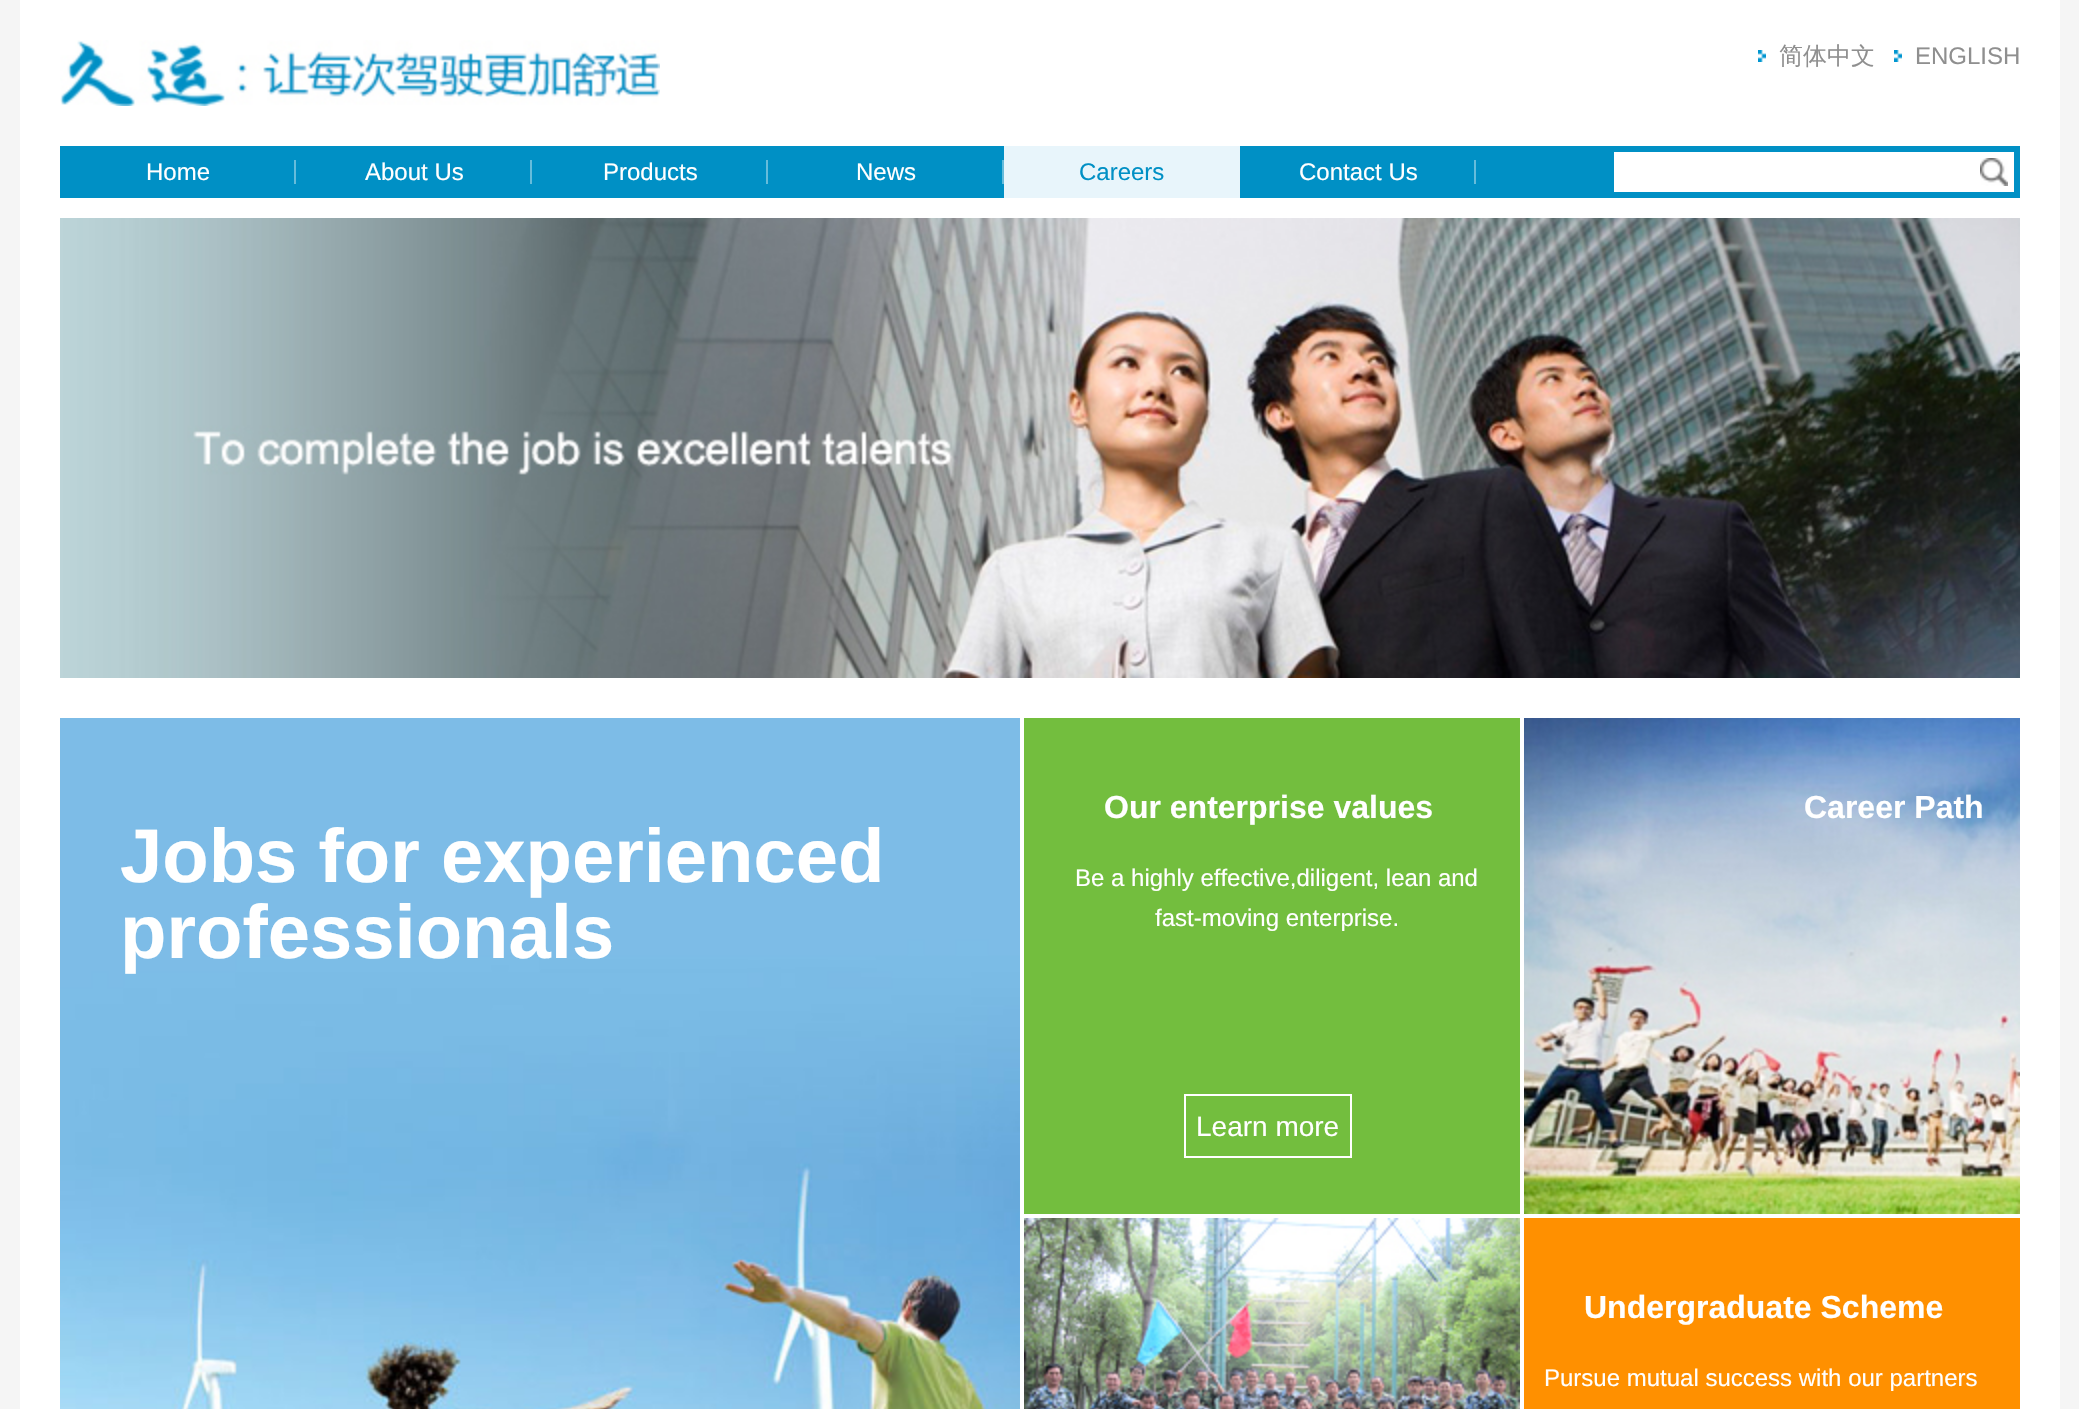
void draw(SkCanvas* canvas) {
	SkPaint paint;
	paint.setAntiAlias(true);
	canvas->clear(0xfff5f5f5);
	paint.setColor(0xffffffff);
	canvas->drawRect(SkRect::MakeXYWH(20, 0, 2040, 1409), paint);
	canvas->drawImageRect(SkImages::DeferredFromEncodedData(SkData::MakeFromFileName("img1.png")), SkRect::MakeXYWH(60, 40, 600, 66), SkSamplingOptions());
	canvas->drawImageRect(SkImages::DeferredFromEncodedData(SkData::MakeFromFileName("img2.png")), SkRect::MakeXYWH(1758, 50, 8, 12), SkSamplingOptions());
	SkFont f1(fontMgr->matchFamilyStyle("WenQuanYi Zen Hei", SkFontStyle(500, SkFontStyle::kNormal_Width, SkFontStyle::kUpright_Slant)), 24);
	f1.setSubpixel(true);
	paint.setColor(0xff8f8f8f);
	canvas->drawString("简体中文", 1779, 64, f1, paint);
	canvas->drawImageRect(SkImages::DeferredFromEncodedData(SkData::MakeFromFileName("img2.png")), SkRect::MakeXYWH(1894, 50, 8, 12), SkSamplingOptions());
	SkFont f2(fontMgr->matchFamilyStyle("Liberation Sans", SkFontStyle::Normal()), 24);
	f2.setSubpixel(true);
	canvas->drawString("ENGLISH", 1915, 64, f2, paint);
	paint.setColor(0xff0090c5);
	canvas->drawRect(SkRect::MakeXYWH(60, 146, 1960, 52), paint);
	paint.setColor(0xff66bcdb);
	canvas->drawRect(SkRect::MakeXYWH(294, 160, 2, 24), paint);
	paint.setColor(0xffffffff);
	canvas->drawString("Home", 146, 180, f2, paint);
	paint.setColor(0xff66bcdb);
	canvas->drawRect(SkRect::MakeXYWH(530, 160, 2, 24), paint);
	paint.setColor(0xffffffff);
	canvas->drawString("About Us", 365, 180, f2, paint);
	paint.setColor(0xff66bcdb);
	canvas->drawRect(SkRect::MakeXYWH(766, 160, 2, 24), paint);
	paint.setColor(0xffffffff);
	canvas->drawString("Products", 603, 180, f2, paint);
	paint.setColor(0xff66bcdb);
	canvas->drawRect(SkRect::MakeXYWH(1002, 160, 2, 24), paint);
	paint.setColor(0xffffffff);
	canvas->drawString("News", 856, 180, f2, paint);
	paint.setColor(0xffe8f5fb);
	canvas->drawRect(SkRect::MakeXYWH(1004, 146, 236, 52), paint);
	paint.setColor(0xff0090c5);
	canvas->drawString("Careers", 1079, 180, f2, paint);
	paint.setColor(0xff66bcdb);
	canvas->drawRect(SkRect::MakeXYWH(1474, 160, 2, 24), paint);
	paint.setColor(0xffffffff);
	canvas->drawString("Contact Us", 1299, 180, f2, paint);
	canvas->drawRect(SkRect::MakeXYWH(1614, 152, 400, 40), paint);
	canvas->drawImageRect(SkImages::DeferredFromEncodedData(SkData::MakeFromFileName("img3.png")), SkRect::MakeXYWH(1980, 158, 28, 28), SkSamplingOptions());
	canvas->drawImageRect(SkImages::DeferredFromEncodedData(SkData::MakeFromFileName("img4.png")), SkRect::MakeXYWH(60, 218, 1960, 460), SkSamplingOptions());
	paint.setColor(0xff73be3e);
	canvas->drawRect(SkRect::MakeXYWH(1024, 718, 496, 496), paint);
	SkFont f3(fontMgr->matchFamilyStyle("Liberation Sans", SkFontStyle::Bold()), 32);
	f3.setSubpixel(true);
	paint.setColor(0xffffffff);
	canvas->drawString("Our enterprise values", 1104, 818, f3, paint);
	canvas->drawString("Be a highly effective,diligent, lean and", 1075, 886, f2, paint);
	canvas->drawString("fast-moving enterprise.", 1155, 926, f2, paint);
	paint.setStroke(true);
	paint.setStrokeWidth(2);
	canvas->drawRect(SkRect::MakeXYWH(1185, 1095, 166, 62), paint);
	SkFont f4(fontMgr->matchFamilyStyle("Liberation Sans", SkFontStyle::Normal()), 28);
	f4.setSubpixel(true);
	paint.setStroke(false);
	canvas->drawString("Learn more", 1196, 1136, f4, paint);
	canvas->drawImageRect(SkImages::DeferredFromEncodedData(SkData::MakeFromFileName("img5.png")), SkRect::MakeXYWH(1524, 718, 496, 496), SkSamplingOptions());
	canvas->drawString("Career Path", 1804, 818, f3, paint);
	canvas->drawImageRect(SkImages::DeferredFromEncodedData(SkData::MakeFromFileName("img6.png")), SkRect::MakeXYWH(60, 718, 960, 691), SkSamplingOptions());
	SkFont f5(fontMgr->matchFamilyStyle("Liberation Sans", SkFontStyle::Bold()), 76);
	f5.setSubpixel(true);
	canvas->drawString("Jobs for experienced", 120, 882, f5, paint);
	canvas->drawString("professionals", 120, 958, f5, paint);
	canvas->drawImageRect(SkImages::DeferredFromEncodedData(SkData::MakeFromFileName("img7.png")), SkRect::MakeXYWH(1024, 1218, 496, 191), SkSamplingOptions());
	paint.setColor(0xffff9000);
	canvas->drawRect(SkRect::MakeXYWH(1524, 1218, 496, 191), paint);
	paint.setColor(0xffffffff);
	canvas->drawString("Undergraduate Scheme", 1584, 1318, f3, paint);
	canvas->drawString("Pursue mutual success with our partners", 1544, 1386, f2, paint);
}
